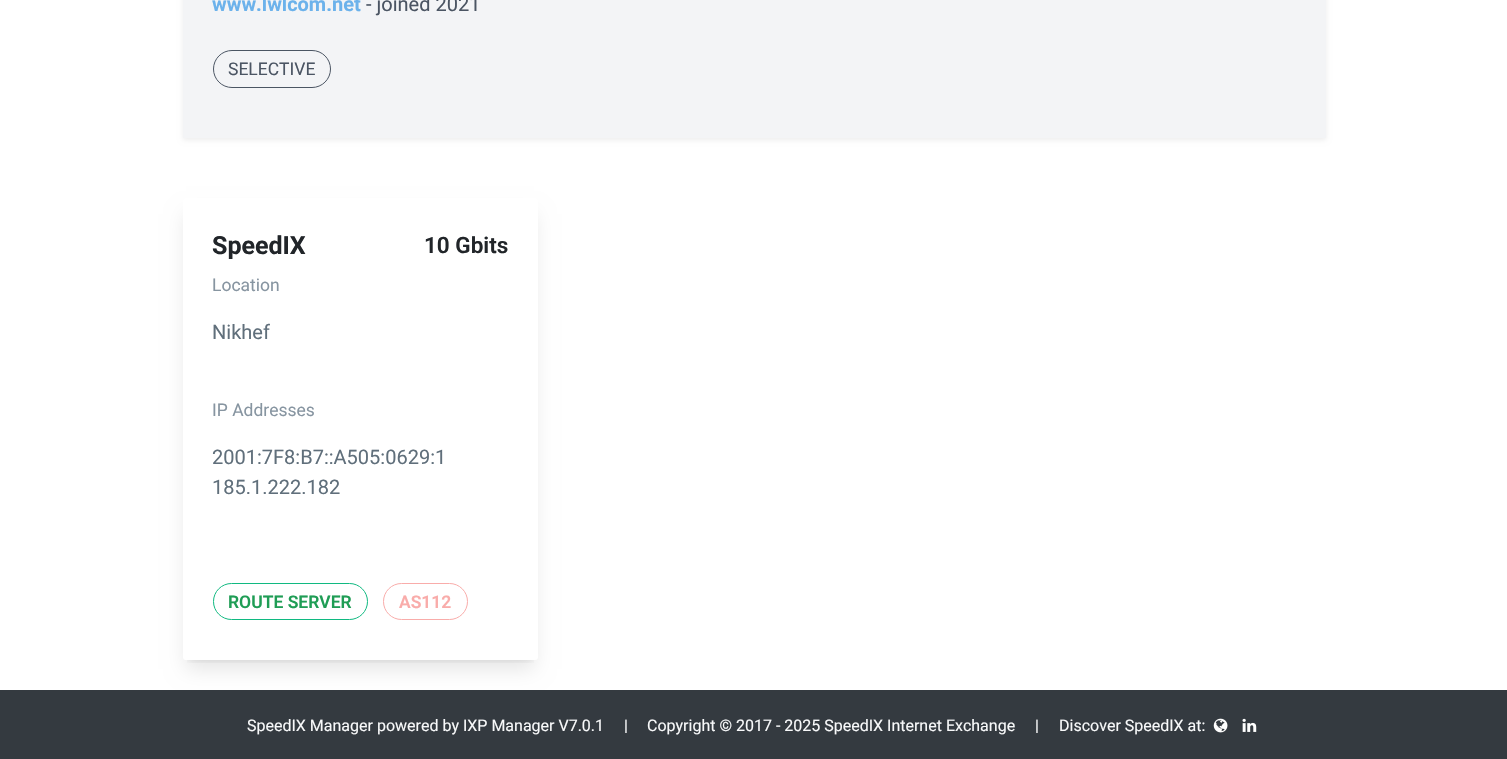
void draw(SkCanvas* canvas) {
	SkPaint paint;
	paint.setAntiAlias(true);
	auto svgPath = [&](const char* data, bool evenOdd = false) {
		SkPath result = *SkParsePath::FromSVGString(data);
		if (evenOdd) result.setFillType(SkPathFillType::kEvenOdd);
		return result;
	};
	canvas->clear(0xffffffff);
	paint.setColor(0x12000000);
	paint.setMaskFilter(SkMaskFilter::MakeBlur(kNormal_SkBlurStyle, 2.5));
	canvas->drawRect(SkRect::MakeXYWH(183, -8, 1143, 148), paint);
	paint.setMaskFilter(nullptr);
	paint.setColor(0xfff3f4f6);
	canvas->drawRect(SkRect::MakeXYWH(183, 0, 1143, 138), paint);
	SkFont f1(fontMgr->matchFamilyStyle("Roboto", SkFontStyle::Bold()), 20);
	f1.setSubpixel(true);
	paint.setColor(0xff6cb2eb);
	canvas->drawString("www.lwlcom.net", 212, 11, f1, paint);
	SkFont f2(fontMgr->matchFamilyStyle("Roboto", SkFontStyle::Normal()), 20);
	f2.setSubpixel(true);
	paint.setColor(0xff4b5563);
	canvas->drawString("- joined 2021", 366, 11, f2, paint);
	paint.setStroke(true);
	paint.setStrokeWidth(1);
	canvas->drawRoundRect(SkRect::MakeXYWH(213.5, 50.5, 117, 37), 18.5, 18.5, paint);
	SkFont f3(fontMgr->matchFamilyStyle("Roboto", SkFontStyle::Normal()), 17.5);
	f3.setSubpixel(true);
	paint.setStroke(false);
	canvas->drawString("SELECTIVE", 228, 75, f3, paint);
	canvas->save();
	canvas->clipRect(SkRect::MakeXYWH(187, 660, 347, 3));
	paint.setColor(0x1a000000);
	paint.setMaskFilter(SkMaskFilter::MakeBlur(kNormal_SkBlurStyle, 4));
	canvas->drawRect(SkRect::MakeXYWH(188, 208, 345, 452), paint);
	paint.setMaskFilter(nullptr);
	canvas->restore();
	paint.setColor(0xff343a40);
	canvas->drawRect(SkRect::MakeXYWH(0, 690, 1507, 69), paint);
	canvas->save();
	canvas->clipPath(svgPath("M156 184H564V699H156ZM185.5 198H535.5C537 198 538 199 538 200.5V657.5C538 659 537 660 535.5 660H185.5C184 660 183 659 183 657.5V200.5C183 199 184 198 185.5 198Z", true), true);
	paint.setColor(0x1a000000);
	paint.setMaskFilter(SkMaskFilter::MakeBlur(kNormal_SkBlurStyle, 9.5));
	canvas->drawRect(SkRect::MakeXYWH(186, 214, 348, 455), paint);
	paint.setMaskFilter(nullptr);
	canvas->restore();
	SkFont f4(fontMgr->matchFamilyStyle("Roboto", SkFontStyle::Bold()), 25);
	f4.setSubpixel(true);
	paint.setColor(0xff212529);
	canvas->drawString("SpeedIX", 212, 254, f4, paint);
	SkFont f5(fontMgr->matchFamilyStyle("Roboto", SkFontStyle(600, SkFontStyle::kNormal_Width, SkFontStyle::kUpright_Slant)), 22.5);
	f5.setSubpixel(true);
	canvas->drawString("10 Gbits", 424, 253, f5, paint);
	paint.setColor(0xff8795a1);
	canvas->drawString("Location", 212, 291, f3, paint);
	paint.setColor(0xff606f7b);
	canvas->drawString("Nikhef", 212, 339, f2, paint);
	paint.setColor(0xff8795a1);
	canvas->drawString("IP Addresses", 212, 416, f3, paint);
	paint.setColor(0xff606f7b);
	canvas->drawString("2001:7F8:B7::A505:0629:1", 212, 464, f2, paint);
	canvas->drawString("185.1.222.182", 212, 494, f2, paint);
	paint.setStroke(true);
	paint.setColor(0xff10b981);
	canvas->drawRoundRect(SkRect::MakeXYWH(213.5, 583.5, 154, 36), 18, 18, paint);
	SkFont f6(fontMgr->matchFamilyStyle("Roboto", SkFontStyle(600, SkFontStyle::kNormal_Width, SkFontStyle::kUpright_Slant)), 17.5);
	f6.setSubpixel(true);
	paint.setStroke(false);
	paint.setColor(0xff1f9d55);
	canvas->drawString("ROUTE SERVER", 228, 608, f6, paint);
	paint.setStroke(true);
	paint.setColor(0xfff9acaa);
	canvas->drawRoundRect(SkRect::MakeXYWH(383.5, 583.5, 84, 36), 18, 18, paint);
	paint.setStroke(false);
	canvas->drawString("AS112", 399, 608, f6, paint);
	SkFont f7(fontMgr->matchFamilyStyle("Roboto", SkFontStyle::Normal()), 16);
	f7.setSubpixel(true);
	paint.setColor(0xfff8f9fa);
	canvas->drawString("SpeedIX Manager powered by IXP Manager V7.0.1", 247, 731, f7, paint);
	canvas->drawString("|", 624, 731, f7, paint);
	canvas->drawString("Copyright © 2017 - 2025 SpeedIX Internet Exchange", 647, 731, f7, paint);
	canvas->drawString("|", 1035, 731, f7, paint);
	canvas->drawString("Discover SpeedIX at:", 1059, 731, f7, paint);
	canvas->drawImageRect(SkImages::DeferredFromEncodedData(SkData::MakeFromFileName("img1.png")), SkRect::MakeXYWH(1213, 718, 15, 15), SkSamplingOptions());
	canvas->drawImageRect(SkImages::DeferredFromEncodedData(SkData::MakeFromFileName("img2.png")), SkRect::MakeXYWH(1242, 718, 15, 14), SkSamplingOptions());
}
